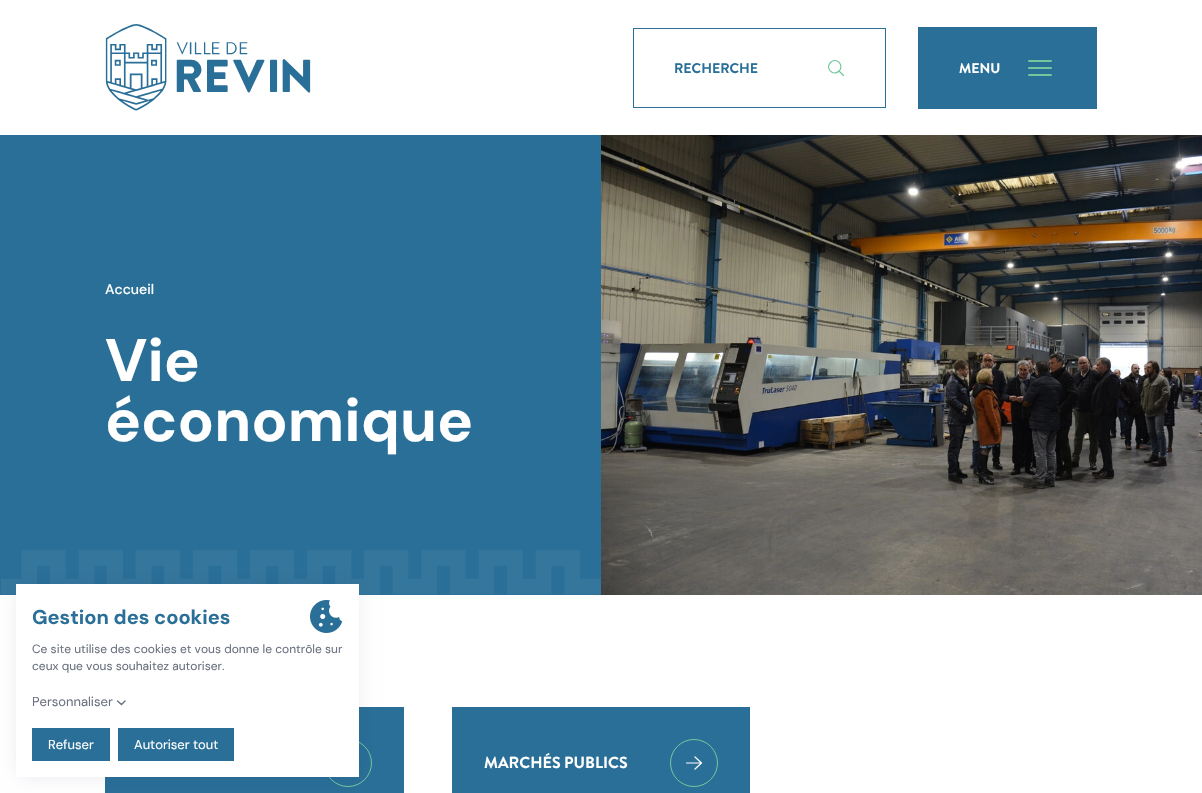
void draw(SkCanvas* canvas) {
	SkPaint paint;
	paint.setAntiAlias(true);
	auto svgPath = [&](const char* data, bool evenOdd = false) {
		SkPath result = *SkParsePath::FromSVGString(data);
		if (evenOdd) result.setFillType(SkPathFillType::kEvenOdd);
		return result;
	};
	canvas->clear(0xffffffff);
	canvas->drawImageRect(SkImages::DeferredFromEncodedData(SkData::MakeFromFileName("img1.png")), SkRect::MakeXYWH(105, 24, 206, 87), SkSamplingOptions());
	paint.setStroke(true);
	paint.setStrokeWidth(1);
	paint.setColor(0xff2a6f97);
	canvas->drawRect(SkRect::MakeXYWH(633.5, 28.5, 252, 79), paint);
	SkFont f1(fontMgr->matchFamilyStyle("Brandon Grotesque", SkFontStyle::Bold()), 14);
	f1.setSubpixel(true);
	paint.setStroke(false);
	canvas->drawString("RECHERCHE", 674, 73, f1, paint);
	paint.setStroke(true);
	paint.setStrokeWidth(1.2);
	paint.setStrokeCap(SkPaint::kRound_Cap);
	paint.setStrokeJoin(SkPaint::kRound_Join);
	paint.setColor(0xff74c69d);
	canvas->drawPath(svgPath("M843.5 75.5L839 71M839 71C845 65.5 836 56.5 830.5 62.5C824.5 68 833.5 77 839 71Z"), paint);
	paint.setStroke(false);
	paint.setColor(0xff2a6f97);
	canvas->drawRect(SkRect::MakeXYWH(918, 27, 179, 82), paint);
	paint.setColor(0xffffffff);
	canvas->drawString("MENU", 959, 73, f1, paint);
	paint.setStroke(true);
	paint.setStrokeWidth(2);
	paint.setColor(0xff74c69d);
	canvas->drawPath(svgPath("M1029 61H1051M1029 68H1051M1029 75H1051"), paint);
	paint.setStroke(false);
	paint.setColor(0xff2a6f97);
	canvas->drawRect(SkRect::MakeXYWH(0, 135, 601, 460), paint);
	SkFont f2(fontMgr->matchFamilyStyle("DM Sans", SkFontStyle(500, SkFontStyle::kNormal_Width, SkFontStyle::kUpright_Slant)), 14);
	f2.setSubpixel(true);
	paint.setColor(0xffffffff);
	canvas->drawString("Accueil", 105, 294, f2, paint);
	SkFont f3(fontMgr->matchFamilyStyle("DM Sans", SkFontStyle::Bold()), 60);
	f3.setSubpixel(true);
	canvas->drawString("Vie", 105, 381, f3, paint);
	canvas->drawString("économique", 105, 441, f3, paint);
	canvas->drawImageRect(SkImages::DeferredFromEncodedData(SkData::MakeFromFileName("img2.png")), SkRect::MakeXYWH(1, 550, 600, 45), SkSamplingOptions());
	canvas->drawImageRect(SkImages::DeferredFromEncodedData(SkData::MakeFromFileName("img3.png")), SkRect::MakeXYWH(601, 135, 601, 460), SkSamplingOptions());
	paint.setColor(0xff2a6f97);
	canvas->drawRect(SkRect::MakeXYWH(105, 707, 299, 86), paint);
	paint.setStroke(true);
	paint.setStrokeWidth(1);
	paint.setStrokeCap(SkPaint::kButt_Cap);
	paint.setStrokeJoin(SkPaint::kMiter_Join);
	paint.setColor(0xff74c69d);
	canvas->drawCircle(348, 763, 23.5, paint);
	paint.setStroke(false);
	paint.setColor(0xff2a6f97);
	canvas->drawRect(SkRect::MakeXYWH(452, 707, 298, 86), paint);
	SkFont f4(fontMgr->matchFamilyStyle("Brandon Grotesque", SkFontStyle::Bold()), 16);
	f4.setSubpixel(true);
	paint.setColor(0xffffffff);
	canvas->drawString("MARCHÉS PUBLICS", 484, 768, f4, paint);
	paint.setStroke(true);
	paint.setColor(0xff74c69d);
	canvas->drawCircle(694, 763, 23.5, paint);
	paint.setStrokeWidth(1.2);
	paint.setStrokeCap(SkPaint::kRound_Cap);
	paint.setStrokeJoin(SkPaint::kRound_Join);
	paint.setColor(0xffffffff);
	canvas->drawPath(svgPath("M695 757L701.5 763M701.5 763L695 769M701.5 763H686.5"), paint);
	paint.setStroke(false);
	paint.setColor(0x1a01013f);
	paint.setMaskFilter(SkMaskFilter::MakeBlur(kNormal_SkBlurStyle, 9.5));
	canvas->drawRect(SkRect::MakeXYWH(20, 590, 335, 185), paint);
	paint.setMaskFilter(nullptr);
	paint.setColor(0xffffffff);
	canvas->drawRect(SkRect::MakeXYWH(16, 584, 343, 193), paint);
	SkFont f5(fontMgr->matchFamilyStyle("DM Sans", SkFontStyle::Bold()), 20);
	f5.setSubpixel(true);
	paint.setColor(0xff2a6f97);
	canvas->drawString("Gestion des cookies", 32, 624, f5, paint);
	canvas->drawImageRect(SkImages::DeferredFromEncodedData(SkData::MakeFromFileName("img4.png")), SkRect::MakeXYWH(310, 600, 33, 33), SkSamplingOptions());
	SkFont f6(fontMgr->matchFamilyStyle("DM Sans", SkFontStyle::Normal()), 12);
	f6.setSubpixel(true);
	paint.setColor(0xff6b7280);
	canvas->drawString("Ce site utilise des cookies et vous donne le contrôle sur", 32, 653, f6, paint);
	canvas->drawString("ceux que vous souhaitez autoriser.", 32, 670, f6, paint);
	SkFont f7(fontMgr->matchFamilyStyle("DM Sans", SkFontStyle::Normal()), 13);
	f7.setSubpixel(true);
	canvas->drawString("Personnaliser", 32, 706, f7, paint);
	paint.setStroke(true);
	paint.setStrokeWidth(1.4);
	paint.setStrokeJoin(SkPaint::kMiter_Join);
	canvas->drawPath(svgPath("M117.5 701L121.5 704.5L125 701"), paint);
	paint.setStroke(false);
	paint.setColor(0xff2a6f97);
	canvas->drawRect(SkRect::MakeXYWH(32, 728, 78, 33), paint);
	paint.setColor(0xffffffff);
	canvas->drawString("Refuser", 48, 749, f7, paint);
	paint.setColor(0xff2a6f97);
	canvas->drawRect(SkRect::MakeXYWH(118, 728, 116, 33), paint);
	paint.setColor(0xffffffff);
	canvas->drawString("Autoriser tout", 134, 749, f7, paint);
}
